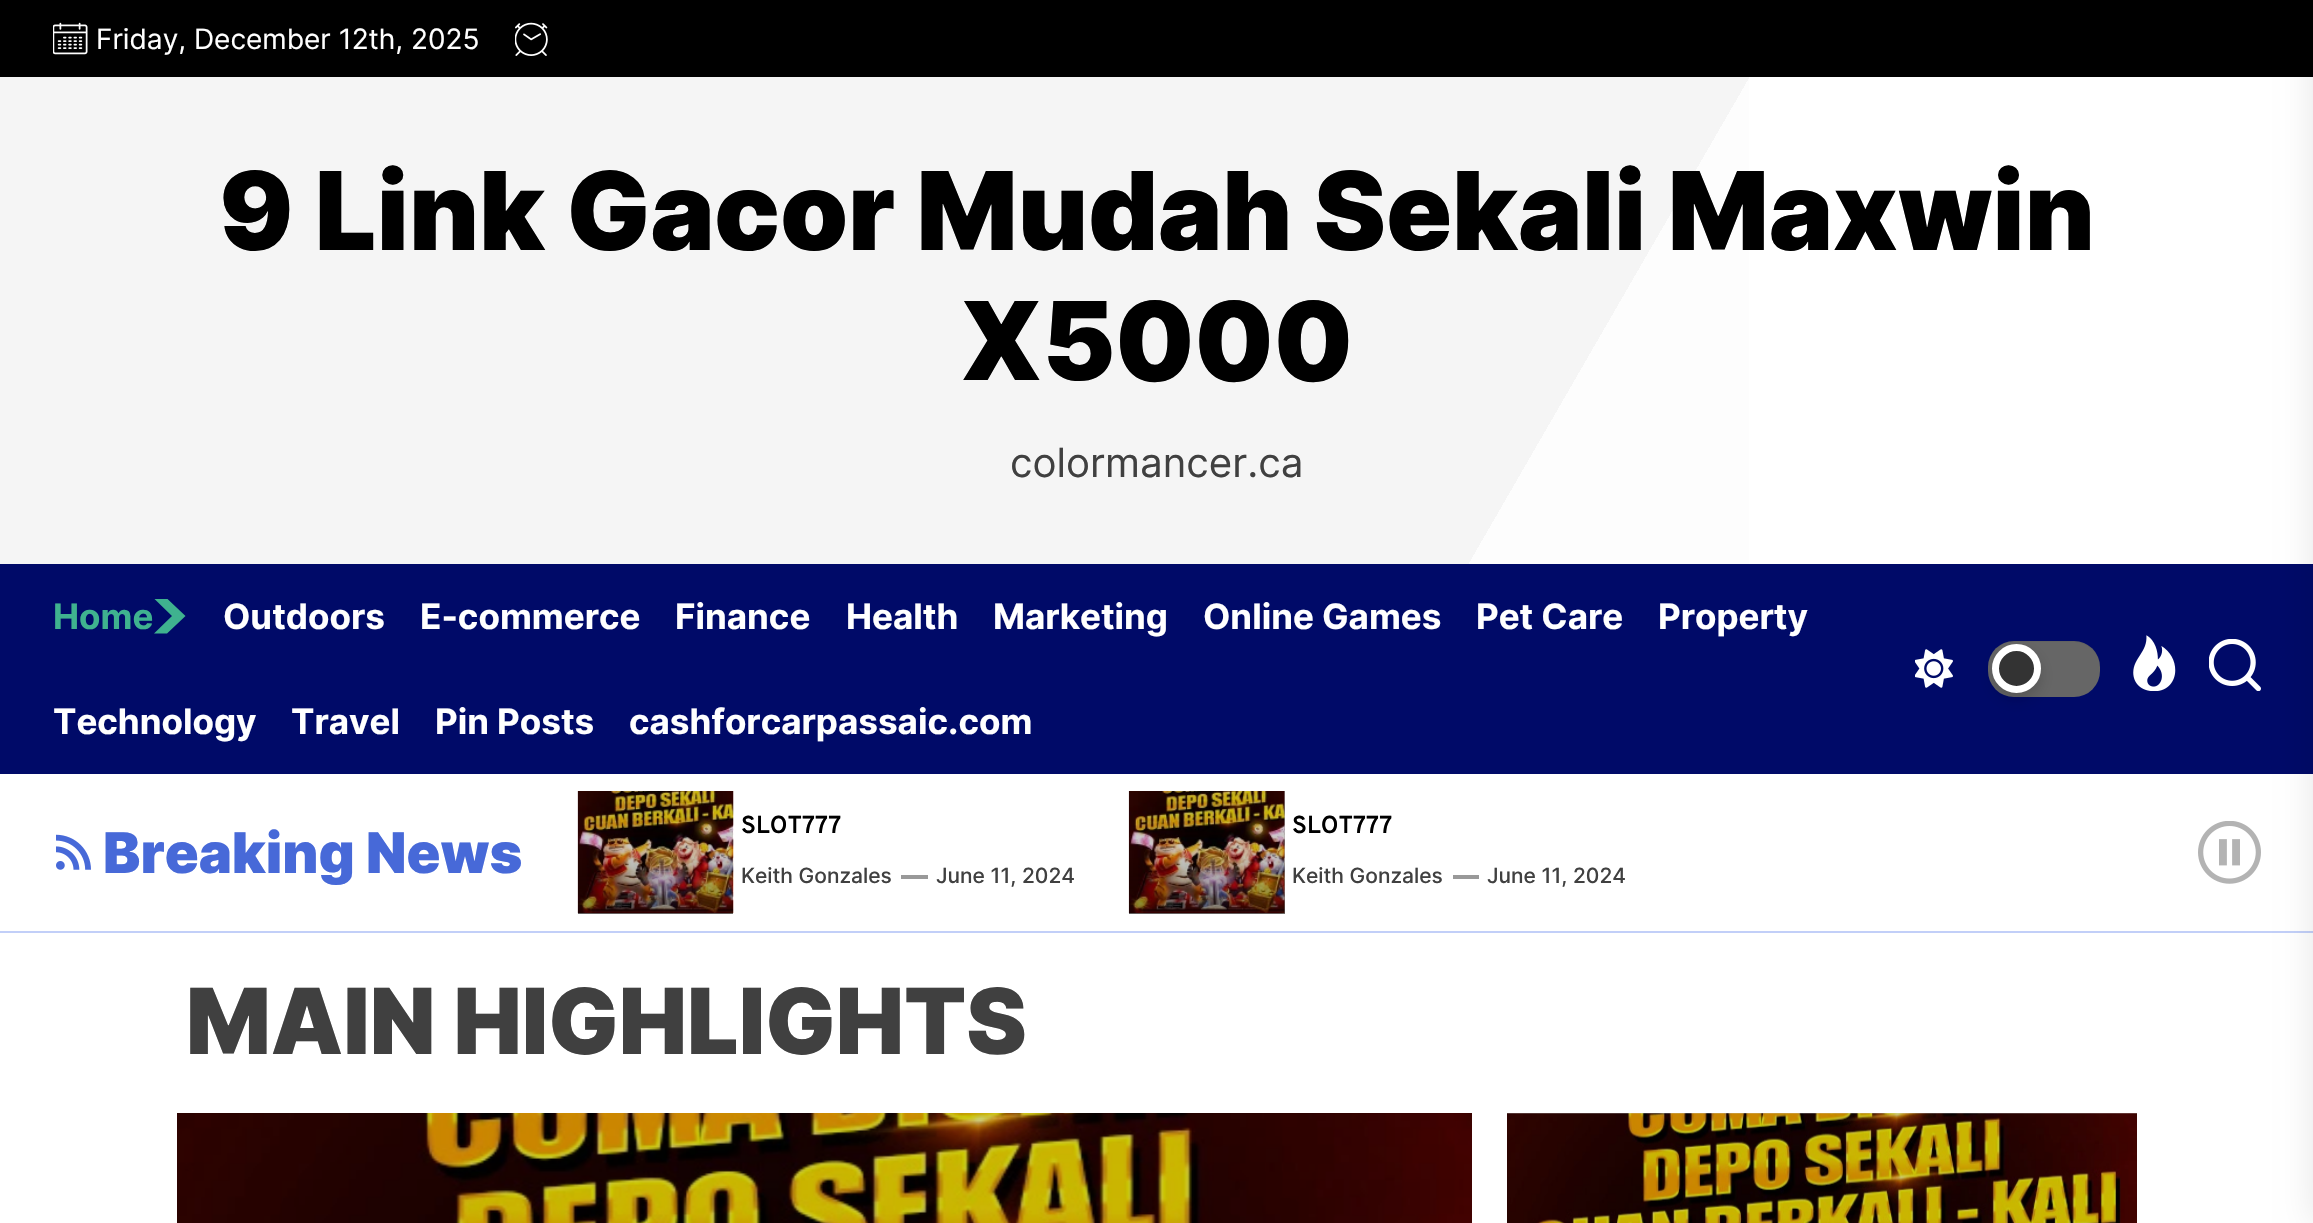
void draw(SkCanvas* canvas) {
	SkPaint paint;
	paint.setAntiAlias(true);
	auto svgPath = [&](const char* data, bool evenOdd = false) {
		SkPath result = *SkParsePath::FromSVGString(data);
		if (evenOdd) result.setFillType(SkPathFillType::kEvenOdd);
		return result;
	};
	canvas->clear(0xffffffff);
	{
		const SkColor colors[] = {0xfffdfdfd, 0xfff5f5f5};
		const float stops[] = {0.35, 0.35};
		const SkPoint ends[] = {{2192, 984}, {122, -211}};
		paint.setShader(SkGradientShader::MakeLinear(ends, colors, stops, 2, SkTileMode::kClamp));
		paint.setAlpha(255);
	}
	canvas->drawRect(SkRect::MakeXYWH(0, 77, 1749, 487), paint);
	paint.setShader(nullptr);
	paint.setColor(0xff000000);
	canvas->drawRect(SkRect::MakeXYWH(0, 0, 2313, 77), paint);
	canvas->drawImageRect(SkImages::DeferredFromEncodedData(SkData::MakeFromFileName("img1.png")), SkRect::MakeXYWH(53, 22, 35, 33), SkSamplingOptions());
	SkFont f1(fontMgr->matchFamilyStyle("Inter", SkFontStyle::Normal()), 28);
	f1.setSubpixel(true);
	paint.setColor(0xffffffff);
	canvas->drawString("Friday, December 12th, 2025", 96, 49, f1, paint);
	canvas->drawImageRect(SkImages::DeferredFromEncodedData(SkData::MakeFromFileName("img2.png")), SkRect::MakeXYWH(515, 22, 33, 34), SkSamplingOptions());
	SkFont f2(fontMgr->matchFamilyStyle("Inter", SkFontStyle(900, SkFontStyle::kNormal_Width, SkFontStyle::kUpright_Slant)), 108.5);
	f2.setSubpixel(true);
	paint.setColor(0xff000000);
	canvas->drawString("9 Link Gacor Mudah Sekali Maxwin", 219, 250, f2, paint);
	canvas->drawString("X5000", 960, 380, f2, paint);
	SkFont f3(fontMgr->matchFamilyStyle("Inter", SkFontStyle::Normal()), 40.25);
	f3.setSubpixel(true);
	paint.setColor(0xff404040);
	canvas->drawString("colormancer.ca", 1010, 477, f3, paint);
	paint.setColor(0xff000a68);
	canvas->drawRect(SkRect::MakeXYWH(0, 564, 2313, 210), paint);
	SkFont f4(fontMgr->matchFamilyStyle("Inter", SkFontStyle::Bold()), 35);
	f4.setSubpixel(true);
	paint.setColor(0xff3fb28f);
	canvas->drawString("Home", 53, 629, f4, paint);
	canvas->save();
	canvas->clipRect(SkRect::MakeXYWH(152, 599, 35, 35));
	canvas->drawPath(svgPath("M172 616L154 598.5H167L185.5 616L167 633.5H154Z"), paint);
	canvas->restore();
	paint.setColor(0xffffffff);
	canvas->drawString("Outdoors", 223, 629, f4, paint);
	canvas->drawString("E-commerce", 420, 629, f4, paint);
	canvas->drawString("Finance", 675, 629, f4, paint);
	canvas->drawString("Health", 846, 629, f4, paint);
	canvas->drawString("Marketing", 993, 629, f4, paint);
	canvas->drawString("Online Games", 1203, 629, f4, paint);
	canvas->drawString("Pet Care", 1476, 629, f4, paint);
	canvas->drawString("Property", 1658, 629, f4, paint);
	canvas->drawString("Technology", 53, 734, f4, paint);
	canvas->drawString("Travel", 291, 734, f4, paint);
	canvas->drawString("Pin Posts", 435, 734, f4, paint);
	canvas->drawString("cashforcarpassaic.com", 629, 734, f4, paint);
	canvas->drawImageRect(SkImages::DeferredFromEncodedData(SkData::MakeFromFileName("img3.png")), SkRect::MakeXYWH(1915, 649, 38, 39), SkSamplingOptions());
	paint.setColor(0xff666666);
	canvas->drawRoundRect(SkRect::MakeXYWH(1988, 641, 112, 56), 26, 26, paint);
	paint.setColor(0x0d000000);
	canvas->drawPath(svgPath("M2014 642H2074C2088 642 2100 654 2100 668V667C2100 653 2088 641 2074 641H2014C2000 641 1988 653 1988 667V668C1988 654 2000 642 2014 642Z"), paint);
	paint.setColor(0x29000000);
	paint.setMaskFilter(SkMaskFilter::MakeBlur(kNormal_SkBlurStyle, 7));
	canvas->drawRoundRect(SkRect::MakeXYWH(1992, 651, 49, 49), 24.5, 24.5, paint);
	paint.setMaskFilter(nullptr);
	paint.setColor(0xff333333);
	canvas->drawCircle(2016.5, 668.5, 21, paint);
	paint.setStroke(true);
	paint.setStrokeWidth(7);
	paint.setColor(0xffffffff);
	canvas->drawCircle(2016.5, 668.5, 21, paint);
	canvas->drawImageRect(SkImages::DeferredFromEncodedData(SkData::MakeFromFileName("img4.png")), SkRect::MakeXYWH(2133, 635, 43, 56), SkSamplingOptions());
	canvas->drawImageRect(SkImages::DeferredFromEncodedData(SkData::MakeFromFileName("img5.png")), SkRect::MakeXYWH(2209, 639, 52, 52), SkSamplingOptions());
	paint.setStroke(false);
	paint.setColor(0xffc2cff8);
	canvas->drawRect(SkRect::MakeXYWH(0, 931, 2313, 2), paint);
	canvas->drawImageRect(SkImages::DeferredFromEncodedData(SkData::MakeFromFileName("img9.png")), SkRect::MakeXYWH(2198, 821, 63, 63), SkSamplingOptions());
	paint.setColor(0x1a000000);
	paint.setMaskFilter(SkMaskFilter::MakeBlur(kNormal_SkBlurStyle, 17.5));
	canvas->drawRect(SkRect::MakeXYWH(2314, 0, 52, 1223), paint);
	paint.setMaskFilter(nullptr);
	canvas->drawImageRect(SkImages::DeferredFromEncodedData(SkData::MakeFromFileName("img6.png")), SkRect::MakeXYWH(56, 834, 35, 36), SkSamplingOptions());
	SkFont f5(fontMgr->matchFamilyStyle("Inter", SkFontStyle(900, SkFontStyle::kNormal_Width, SkFontStyle::kUpright_Slant)), 56);
	f5.setSubpixel(true);
	paint.setColor(0xff4769d8);
	canvas->drawString("Breaking News", 103, 873, f5, paint);
	paint.setColor(0xffd8d8d8);
	canvas->drawRect(SkRect::MakeXYWH(578, 913, 155, 1), paint);
	canvas->drawImageRect(SkImages::DeferredFromEncodedData(SkData::MakeFromFileName("img7.png")), SkRect::MakeXYWH(577, 791, 157, 123), SkSamplingOptions());
	{
		const SkColor colors[] = {0x33000000, 0x80000000};
		const float stops[] = {0.5, 1};
		const SkPoint ends[] = {{665, 791}, {665, 914}};
		paint.setShader(SkGradientShader::MakeLinear(ends, colors, stops, 2, SkTileMode::kClamp));
		paint.setAlpha(255);
	}
	canvas->drawRect(SkRect::MakeXYWH(578, 791, 155, 123), paint);
	SkFont f6(fontMgr->matchFamilyStyle("Overpass", SkFontStyle(600, SkFontStyle::kNormal_Width, SkFontStyle::kUpright_Slant)), 24.5);
	f6.setSubpixel(true);
	paint.setShader(nullptr);
	paint.setColor(0xff000000);
	canvas->drawString("SLOT777", 741, 833, f6, paint);
	SkFont f7(fontMgr->matchFamilyStyle("Inter", SkFontStyle(500, SkFontStyle::kNormal_Width, SkFontStyle::kUpright_Slant)), 21);
	f7.setSubpixel(true);
	paint.setColor(0xff404040);
	canvas->drawString("Keith Gonzales", 741, 883, f7, paint);
	paint.setColor(0xff999999);
	canvas->drawRect(SkRect::MakeXYWH(901, 875, 27, 4), paint);
	paint.setColor(0xff404040);
	canvas->drawString("June 11, 2024", 936, 883, f7, paint);
	paint.setColor(0xffd8d8d8);
	canvas->drawRect(SkRect::MakeXYWH(1129, 791, 156, 123), paint);
	canvas->drawImageRect(SkImages::DeferredFromEncodedData(SkData::MakeFromFileName("img8.png")), SkRect::MakeXYWH(1128, 791, 157, 123), SkSamplingOptions());
	{
		const SkColor colors[] = {0x33000000, 0x80000000};
		const float stops[] = {0.5, 1};
		const SkPoint ends[] = {{1216, 791}, {1216, 914}};
		paint.setShader(SkGradientShader::MakeLinear(ends, colors, stops, 2, SkTileMode::kClamp));
		paint.setAlpha(255);
	}
	canvas->drawRect(SkRect::MakeXYWH(1129, 791, 156, 123), paint);
	paint.setShader(nullptr);
	paint.setColor(0xff000000);
	canvas->drawString("SLOT777", 1292, 833, f6, paint);
	paint.setColor(0xff404040);
	canvas->drawString("Keith Gonzales", 1292, 883, f7, paint);
	paint.setColor(0xff999999);
	canvas->drawRect(SkRect::MakeXYWH(1453, 875, 26, 4), paint);
	paint.setColor(0xff404040);
	canvas->drawString("June 11, 2024", 1487, 883, f7, paint);
	SkFont f8(fontMgr->matchFamilyStyle("Inter", SkFontStyle(900, SkFontStyle::kNormal_Width, SkFontStyle::kUpright_Slant)), 91);
	f8.setSubpixel(true);
	canvas->drawString("MAIN HIGHLIGHTS", 186, 1054, f8, paint);
	canvas->drawImageRect(SkImages::DeferredFromEncodedData(SkData::MakeFromFileName("img10.png")), SkRect::MakeXYWH(177, 1113, 1295, 110), SkSamplingOptions());
	canvas->drawImageRect(SkImages::DeferredFromEncodedData(SkData::MakeFromFileName("img11.png")), SkRect::MakeXYWH(1507, 1113, 630, 110), SkSamplingOptions());
	{
		const SkColor colors[] = {0x33000000, 0x80000000};
		const float stops[] = {0.5, 1};
		const SkPoint ends[] = {{1822, 1113}, {1822, 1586}};
		paint.setShader(SkGradientShader::MakeLinear(ends, colors, stops, 2, SkTileMode::kClamp));
		paint.setAlpha(255);
	}
	canvas->drawRect(SkRect::MakeXYWH(1507, 1113, 630, 110), paint);
}
